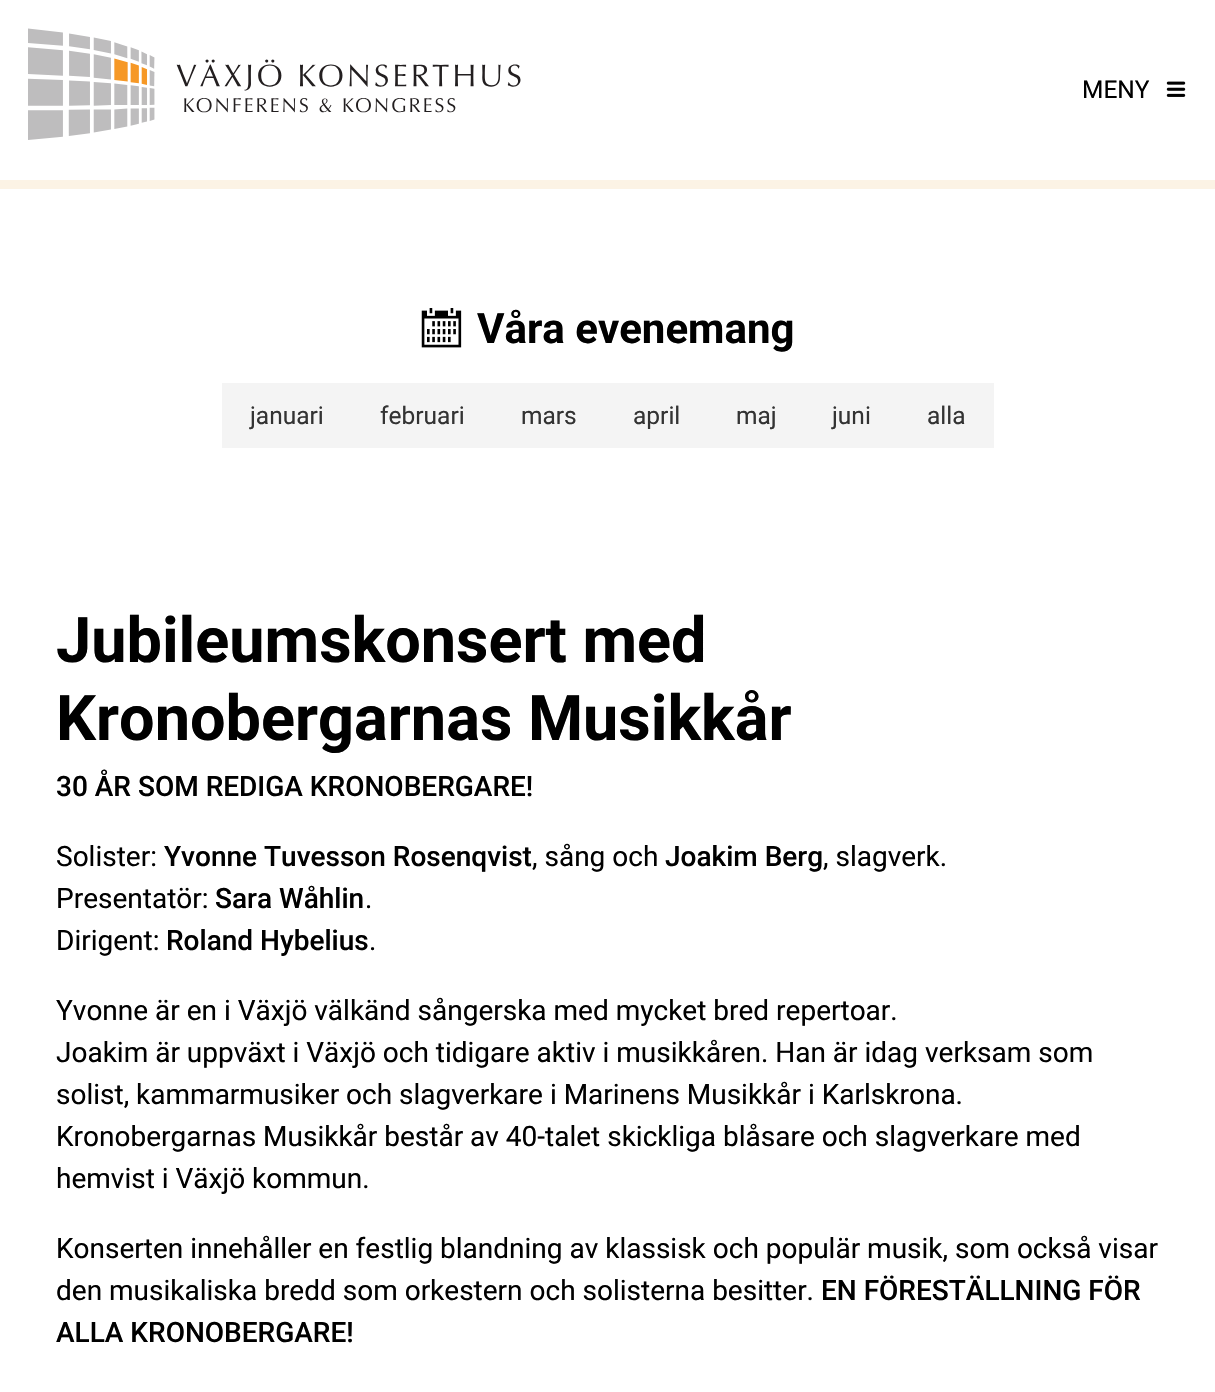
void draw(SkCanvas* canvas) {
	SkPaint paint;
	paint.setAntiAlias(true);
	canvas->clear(0xffffffff);
	paint.setColor(0xfffcf3e5);
	canvas->drawRect(SkRect::MakeXYWH(0, 180, 1215, 9), paint);
	canvas->drawImageRect(SkImages::DeferredFromEncodedData(SkData::MakeFromFileName("img1.png")), SkRect::MakeXYWH(28, 28, 493, 112), SkSamplingOptions());
	SkFont f1(fontMgr->matchFamilyStyle("Roboto", SkFontStyle::Normal()), 24.5);
	f1.setSubpixel(true);
	paint.setColor(0xff000000);
	canvas->drawString("MENY", 1082, 98, f1, paint);
	canvas->drawImageRect(SkImages::DeferredFromEncodedData(SkData::MakeFromFileName("img2.png")), SkRect::MakeXYWH(1166, 81, 20, 16), SkSamplingOptions());
	canvas->drawImageRect(SkImages::DeferredFromEncodedData(SkData::MakeFromFileName("img3.png")), SkRect::MakeXYWH(421, 308, 41, 40), SkSamplingOptions());
	SkFont f2(fontMgr->matchFamilyStyle("Roboto", SkFontStyle::Bold()), 42);
	f2.setSubpixel(true);
	canvas->drawString("Våra evenemang", 477, 343, f2, paint);
	paint.setColor(0xfff4f4f4);
	canvas->drawRect(SkRect::MakeXYWH(222, 383, 772, 65), paint);
	paint.setColor(0xff333333);
	canvas->drawString("januari", 250, 424, f1, paint);
	canvas->drawString("februari", 380, 424, f1, paint);
	canvas->drawString("mars", 521, 424, f1, paint);
	canvas->drawString("april", 633, 424, f1, paint);
	canvas->drawString("maj", 736, 424, f1, paint);
	canvas->drawString("juni", 832, 424, f1, paint);
	canvas->drawString("alla", 927, 424, f1, paint);
	SkFont f3(fontMgr->matchFamilyStyle("Roboto", SkFontStyle::Bold()), 63);
	f3.setSubpixel(true);
	paint.setColor(0xff000000);
	canvas->drawString("Jubileumskonsert med", 56, 662, f3, paint);
	canvas->drawString("Kronobergarnas Musikkår", 56, 740, f3, paint);
	SkFont f4(fontMgr->matchFamilyStyle("Roboto", SkFontStyle(500, SkFontStyle::kNormal_Width, SkFontStyle::kUpright_Slant)), 28);
	f4.setSubpixel(true);
	canvas->drawString("30 ÅR SOM REDIGA KRONOBERGARE!", 56, 796, f4, paint);
	SkFont f5(fontMgr->matchFamilyStyle("Roboto", SkFontStyle::Normal()), 28);
	f5.setSubpixel(true);
	canvas->drawString("Solister:", 56, 866, f5, paint);
	canvas->drawString("Yvonne Tuvesson Rosenqvist", 164, 866, f4, paint);
	canvas->drawString(", sång och", 532, 866, f5, paint);
	canvas->drawString("Joakim Berg", 665, 866, f4, paint);
	canvas->drawString(", slagverk.", 823, 866, f5, paint);
	canvas->drawString("Presentatör:", 56, 908, f5, paint);
	canvas->drawString("Sara Wåhlin", 215, 908, f4, paint);
	canvas->drawString(".", 365, 908, f5, paint);
	canvas->drawString("Dirigent:", 56, 950, f5, paint);
	canvas->drawString("Roland Hybelius", 166, 950, f4, paint);
	canvas->drawString(".", 369, 950, f5, paint);
	canvas->drawString("Yvonne är en i Växjö välkänd sångerska med mycket bred repertoar.", 56, 1020, f5, paint);
	canvas->drawString("Joakim är uppväxt i Växjö och tidigare aktiv i musikkåren. Han är idag verksam som", 56, 1062, f5, paint);
	canvas->drawString("solist, kammarmusiker och slagverkare i Marinens Musikkår i Karlskrona.", 56, 1104, f5, paint);
	canvas->drawString("Kronobergarnas Musikkår består av 40-talet skickliga blåsare och slagverkare med", 56, 1146, f5, paint);
	canvas->drawString("hemvist i Växjö kommun.", 56, 1188, f5, paint);
	canvas->drawString("Konserten innehåller en festlig blandning av klassisk och populär musik, som också visar", 56, 1258, f5, paint);
	canvas->drawString("den musikaliska bredd som orkestern och solisterna besitter.", 56, 1300, f5, paint);
	canvas->drawString("EN FÖRESTÄLLNING FÖR", 821, 1300, f4, paint);
	canvas->drawString("ALLA KRONOBERGARE!", 56, 1342, f4, paint);
}
